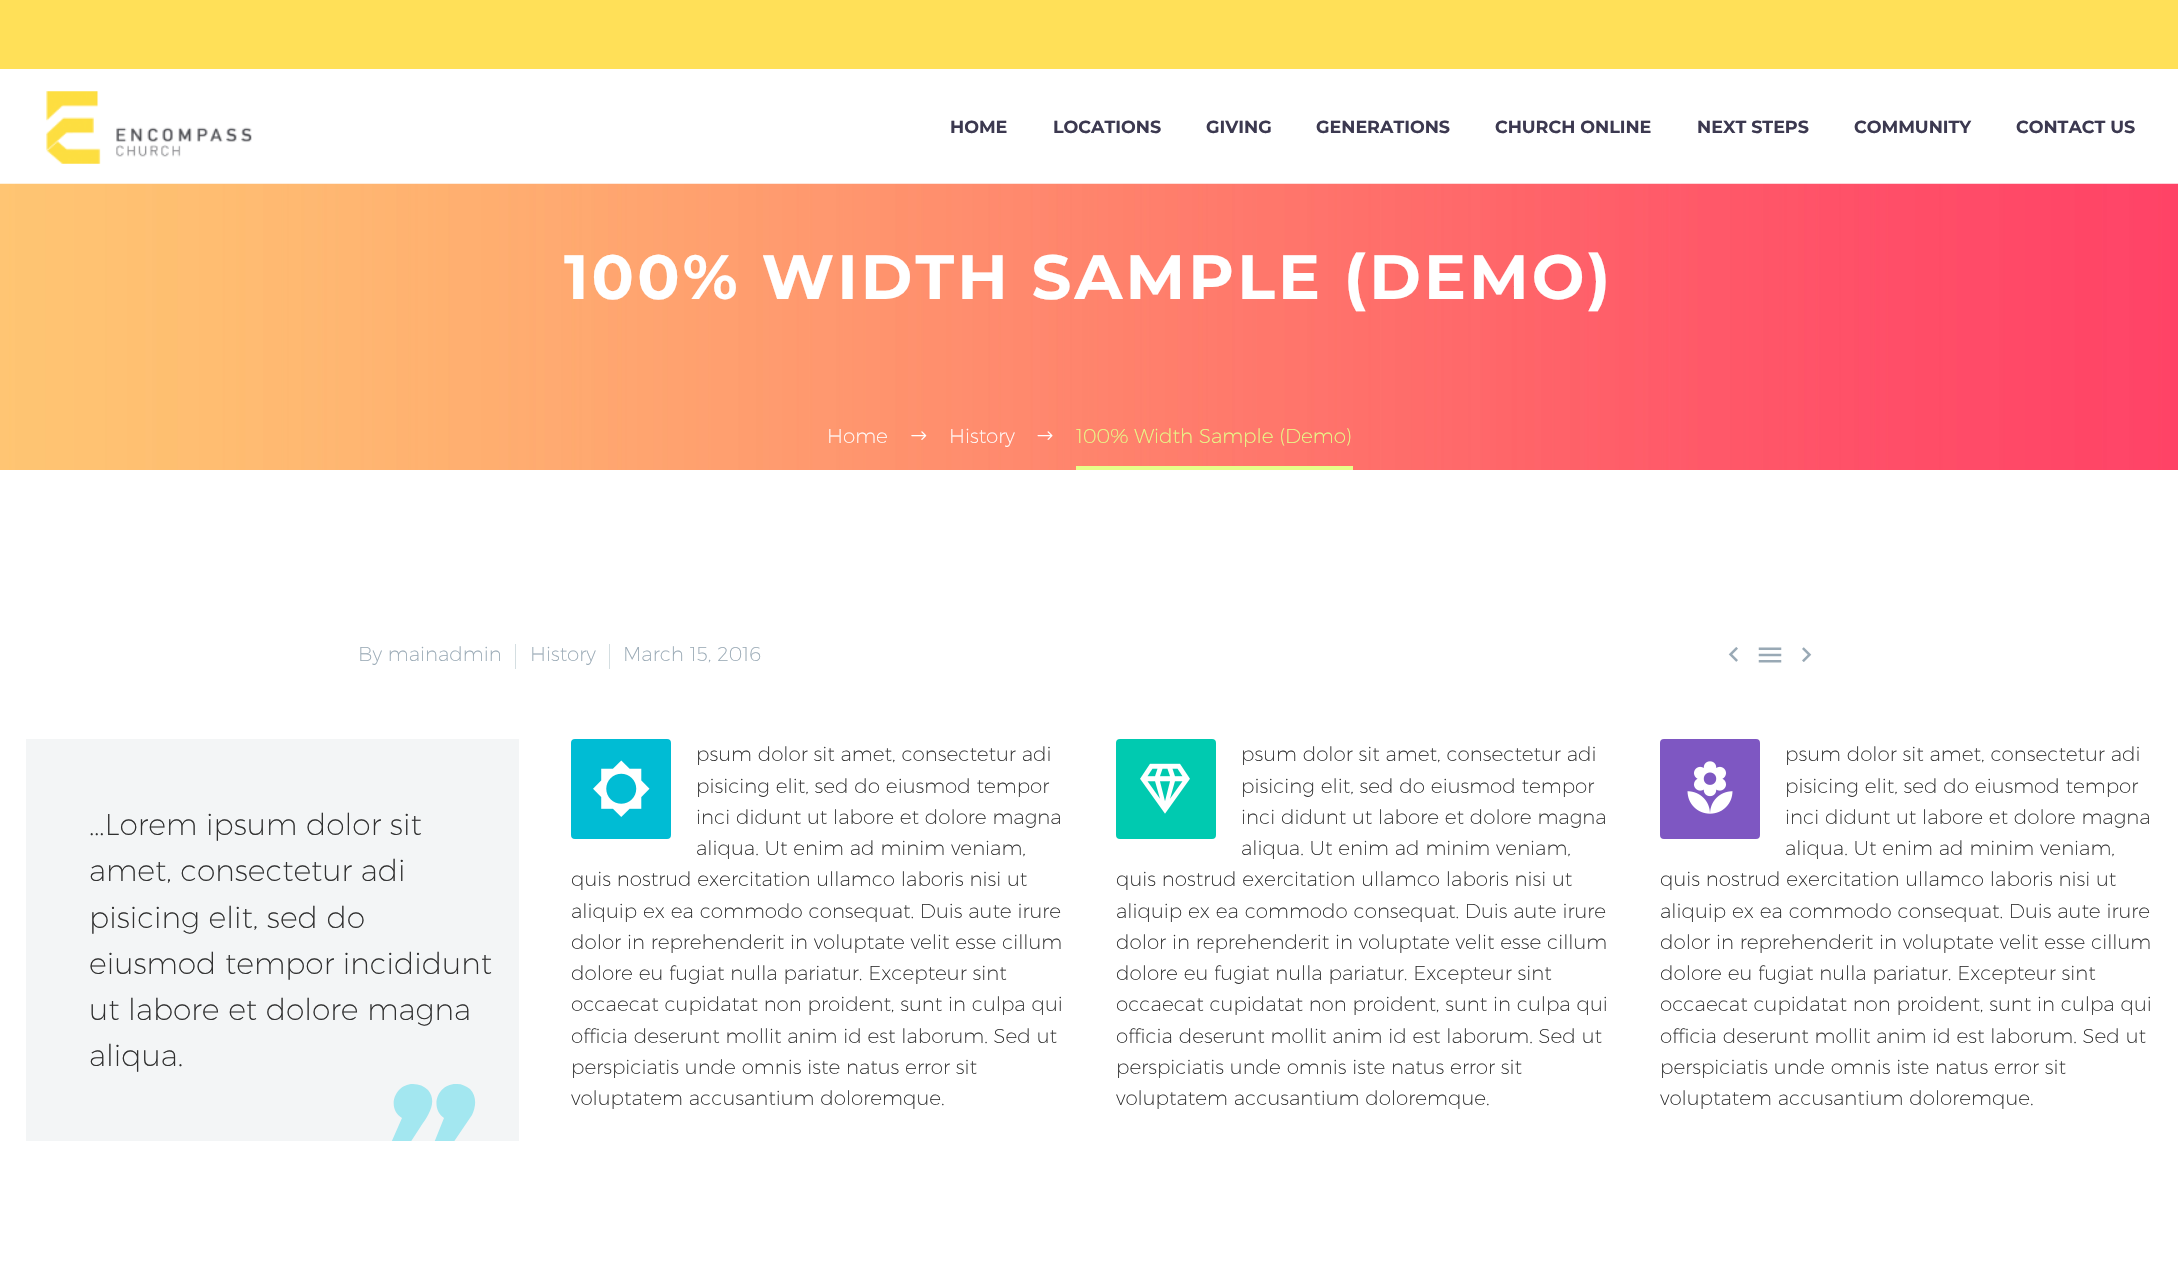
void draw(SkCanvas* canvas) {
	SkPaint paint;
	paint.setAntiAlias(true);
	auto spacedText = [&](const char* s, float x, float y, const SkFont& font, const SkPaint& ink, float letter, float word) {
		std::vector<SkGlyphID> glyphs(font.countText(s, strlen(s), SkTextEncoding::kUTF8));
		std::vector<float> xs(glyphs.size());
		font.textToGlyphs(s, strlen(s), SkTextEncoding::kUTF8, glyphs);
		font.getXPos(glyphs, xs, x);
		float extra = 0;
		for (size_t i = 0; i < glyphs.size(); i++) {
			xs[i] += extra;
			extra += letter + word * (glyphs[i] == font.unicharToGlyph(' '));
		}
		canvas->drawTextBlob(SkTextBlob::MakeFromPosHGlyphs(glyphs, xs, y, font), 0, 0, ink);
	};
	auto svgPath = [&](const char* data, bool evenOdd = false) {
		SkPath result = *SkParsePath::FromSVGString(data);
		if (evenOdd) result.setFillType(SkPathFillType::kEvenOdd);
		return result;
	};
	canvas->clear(0xffffffff);
	paint.setColor(0xffffe058);
	canvas->drawRect(SkRect::MakeXYWH(0, 0, 2178, 69), paint);
	canvas->drawImageRect(SkImages::DeferredFromEncodedData(SkData::MakeFromFileName("img1.png")), SkRect::MakeXYWH(46, 91, 206, 73), SkSamplingOptions());
	SkFont f1(fontMgr->matchFamilyStyle("Montserrat", SkFontStyle::Bold()), 17.5);
	f1.setSubpixel(true);
	paint.setColor(0xff3c3950);
	canvas->drawString("HOME", 950, 133, f1, paint);
	canvas->drawString("LOCATIONS", 1053, 133, f1, paint);
	canvas->drawString("GIVING", 1206, 133, f1, paint);
	canvas->drawString("GENERATIONS", 1316, 133, f1, paint);
	canvas->drawString("CHURCH ONLINE", 1495, 133, f1, paint);
	canvas->drawString("NEXT STEPS", 1697, 133, f1, paint);
	canvas->drawString("COMMUNITY", 1854, 133, f1, paint);
	canvas->drawString("CONTACT US", 2016, 133, f1, paint);
	canvas->drawImageRect(SkImages::DeferredFromEncodedData(SkData::MakeFromFileName("img2.png")), SkRect::MakeXYWH(0, 183, 2178, 287), SkSamplingOptions());
	SkFont f2(fontMgr->matchFamilyStyle("Montserrat", SkFontStyle::Bold()), 62.5);
	f2.setSubpixel(true);
	paint.setColor(0xffffffff);
	spacedText("100% WIDTH SAMPLE (DEMO)", 564, 299, f2, paint, 3.1, 0);
	SkFont f3(fontMgr->matchFamilyStyle("Montserrat", SkFontStyle(200, SkFontStyle::kNormal_Width, SkFontStyle::kUpright_Slant)), 20);
	f3.setSubpixel(true);
	canvas->drawString("Home", 827, 443, f3, paint);
	canvas->drawImageRect(SkImages::DeferredFromEncodedData(SkData::MakeFromFileName("img3.png")), SkRect::MakeXYWH(911, 431, 16, 9), SkSamplingOptions());
	canvas->drawString("History", 949, 443, f3, paint);
	canvas->drawImageRect(SkImages::DeferredFromEncodedData(SkData::MakeFromFileName("img4.png")), SkRect::MakeXYWH(1037, 431, 16, 9), SkSamplingOptions());
	paint.setColor(0xffe7ff89);
	canvas->drawRect(SkRect::MakeXYWH(1076, 466, 277, 4), paint);
	canvas->drawString("100% Width Sample (Demo)", 1076, 443, f3, paint);
	paint.setColor(0xff99a9b5);
	canvas->drawString("By mainadmin", 358, 661, f3, paint);
	paint.setColor(0xffd4dee1);
	canvas->drawRect(SkRect::MakeXYWH(515, 644, 1, 25), paint);
	paint.setColor(0xff99a9b5);
	canvas->drawString("History", 530, 661, f3, paint);
	paint.setColor(0xffd4dee1);
	canvas->drawRect(SkRect::MakeXYWH(609, 644, 1, 25), paint);
	paint.setColor(0xff99a9b5);
	canvas->drawString("March 15, 2016", 623, 661, f3, paint);
	canvas->drawImageRect(SkImages::DeferredFromEncodedData(SkData::MakeFromFileName("img5.png")), SkRect::MakeXYWH(1728, 647, 10, 15), SkSamplingOptions());
	canvas->drawImageRect(SkImages::DeferredFromEncodedData(SkData::MakeFromFileName("img6.png")), SkRect::MakeXYWH(1758, 647, 24, 16), SkSamplingOptions());
	canvas->drawImageRect(SkImages::DeferredFromEncodedData(SkData::MakeFromFileName("img7.png")), SkRect::MakeXYWH(1802, 647, 10, 15), SkSamplingOptions());
	paint.setColor(0xfff3f5f6);
	canvas->drawRect(SkRect::MakeXYWH(26, 739, 493, 402), paint);
	SkFont f4(fontMgr->matchFamilyStyle("Montserrat", SkFontStyle(200, SkFontStyle::kNormal_Width, SkFontStyle::kUpright_Slant)), 30);
	f4.setSubpixel(true);
	paint.setColor(0xff303030);
	canvas->drawString("…Lorem ipsum dolor sit", 89, 835, f4, paint);
	canvas->drawString("amet, consectetur adi", 89, 881, f4, paint);
	canvas->drawString("pisicing elit, sed do", 89, 928, f4, paint);
	canvas->drawString("eiusmod tempor incididunt", 89, 974, f4, paint);
	canvas->drawString("ut labore et dolore magna", 89, 1020, f4, paint);
	canvas->drawString("aliqua.", 89, 1066, f4, paint);
	canvas->save();
	canvas->clipRect(SkRect::MakeXYWH(26, 739, 493, 402));
	paint.setColor(0xffa3e7f0);
	canvas->drawPath(svgPath("M470 1089C466 1086 462 1084 457 1084C438 1083 429 1107 444 1118L434 1143H453L472 1115C476 1107 477 1096 470 1089ZM413 1084C395 1084 386 1108 402 1118L391 1143H410L421 1126C428 1116 438 1102 428 1090C424 1086 419 1084 413 1084Z"), paint);
	canvas->restore();
	paint.setStroke(true);
	paint.setStrokeWidth(5);
	paint.setColor(0xff00bcd4);
	canvas->drawRoundRect(SkRect::MakeXYWH(573.5, 741.5, 95, 95), 1.5, 1.5, paint);
	paint.setStroke(false);
	canvas->drawRect(SkRect::MakeXYWH(576, 744, 90, 90), paint);
	canvas->drawImageRect(SkImages::DeferredFromEncodedData(SkData::MakeFromFileName("img8.png")), SkRect::MakeXYWH(593, 760, 28, 57), SkSamplingOptions());
	canvas->drawImageRect(SkImages::DeferredFromEncodedData(SkData::MakeFromFileName("img9.png")), SkRect::MakeXYWH(621, 760, 29, 57), SkSamplingOptions());
	paint.setColor(0xff303030);
	canvas->drawString("psum dolor sit amet, consectetur adi", 696, 761, f3, paint);
	canvas->drawString("pisicing elit, sed do eiusmod tempor", 696, 793, f3, paint);
	canvas->drawString("inci didunt ut labore et dolore magna", 696, 824, f3, paint);
	canvas->drawString("aliqua. Ut enim ad minim veniam,", 696, 855, f3, paint);
	canvas->drawString("quis nostrud exercitation ullamco laboris nisi ut", 571, 886, f3, paint);
	canvas->drawString("aliquip ex ea commodo consequat. Duis aute irure", 571, 918, f3, paint);
	canvas->drawString("dolor in reprehenderit in voluptate velit esse cillum", 571, 949, f3, paint);
	canvas->drawString("dolore eu fugiat nulla pariatur. Excepteur sint", 571, 980, f3, paint);
	canvas->drawString("occaecat cupidatat non proident, sunt in culpa qui", 571, 1011, f3, paint);
	canvas->drawString("officia deserunt mollit anim id est laborum. Sed ut", 571, 1043, f3, paint);
	canvas->drawString("perspiciatis unde omnis iste natus error sit", 571, 1074, f3, paint);
	canvas->drawString("voluptatem accusantium doloremque.", 571, 1105, f3, paint);
	paint.setStroke(true);
	paint.setColor(0xff00cab0);
	canvas->drawRoundRect(SkRect::MakeXYWH(1118.5, 741.5, 95, 95), 1.5, 1.5, paint);
	paint.setStroke(false);
	canvas->drawRect(SkRect::MakeXYWH(1121, 744, 90, 90), paint);
	canvas->drawImageRect(SkImages::DeferredFromEncodedData(SkData::MakeFromFileName("img10.png")), SkRect::MakeXYWH(1140, 763, 25, 51), SkSamplingOptions());
	canvas->drawImageRect(SkImages::DeferredFromEncodedData(SkData::MakeFromFileName("img11.png")), SkRect::MakeXYWH(1165, 763, 25, 51), SkSamplingOptions());
	paint.setColor(0xff303030);
	canvas->drawString("psum dolor sit amet, consectetur adi", 1241, 761, f3, paint);
	canvas->drawString("pisicing elit, sed do eiusmod tempor", 1241, 793, f3, paint);
	canvas->drawString("inci didunt ut labore et dolore magna", 1241, 824, f3, paint);
	canvas->drawString("aliqua. Ut enim ad minim veniam,", 1241, 855, f3, paint);
	canvas->drawString("quis nostrud exercitation ullamco laboris nisi ut", 1116, 886, f3, paint);
	canvas->drawString("aliquip ex ea commodo consequat. Duis aute irure", 1116, 918, f3, paint);
	canvas->drawString("dolor in reprehenderit in voluptate velit esse cillum", 1116, 949, f3, paint);
	canvas->drawString("dolore eu fugiat nulla pariatur. Excepteur sint", 1116, 980, f3, paint);
	canvas->drawString("occaecat cupidatat non proident, sunt in culpa qui", 1116, 1011, f3, paint);
	canvas->drawString("officia deserunt mollit anim id est laborum. Sed ut", 1116, 1043, f3, paint);
	canvas->drawString("perspiciatis unde omnis iste natus error sit", 1116, 1074, f3, paint);
	canvas->drawString("voluptatem accusantium doloremque.", 1116, 1105, f3, paint);
	paint.setStroke(true);
	paint.setColor(0xff7e57c2);
	canvas->drawRoundRect(SkRect::MakeXYWH(1662.5, 741.5, 95, 95), 1.5, 1.5, paint);
	paint.setStroke(false);
	canvas->drawRect(SkRect::MakeXYWH(1665, 744, 90, 90), paint);
	canvas->drawImageRect(SkImages::DeferredFromEncodedData(SkData::MakeFromFileName("img12.png")), SkRect::MakeXYWH(1687, 761, 23, 53), SkSamplingOptions());
	canvas->drawImageRect(SkImages::DeferredFromEncodedData(SkData::MakeFromFileName("img13.png")), SkRect::MakeXYWH(1710, 761, 23, 53), SkSamplingOptions());
	paint.setColor(0xff303030);
	canvas->drawString("psum dolor sit amet, consectetur adi", 1785, 761, f3, paint);
	canvas->drawString("pisicing elit, sed do eiusmod tempor", 1785, 793, f3, paint);
	canvas->drawString("inci didunt ut labore et dolore magna", 1785, 824, f3, paint);
	canvas->drawString("aliqua. Ut enim ad minim veniam,", 1785, 855, f3, paint);
	canvas->drawString("quis nostrud exercitation ullamco laboris nisi ut", 1660, 886, f3, paint);
	canvas->drawString("aliquip ex ea commodo consequat. Duis aute irure", 1660, 918, f3, paint);
	canvas->drawString("dolor in reprehenderit in voluptate velit esse cillum", 1660, 949, f3, paint);
	canvas->drawString("dolore eu fugiat nulla pariatur. Excepteur sint", 1660, 980, f3, paint);
	canvas->drawString("occaecat cupidatat non proident, sunt in culpa qui", 1660, 1011, f3, paint);
	canvas->drawString("officia deserunt mollit anim id est laborum. Sed ut", 1660, 1043, f3, paint);
	canvas->drawString("perspiciatis unde omnis iste natus error sit", 1660, 1074, f3, paint);
	canvas->drawString("voluptatem accusantium doloremque.", 1660, 1105, f3, paint);
}
